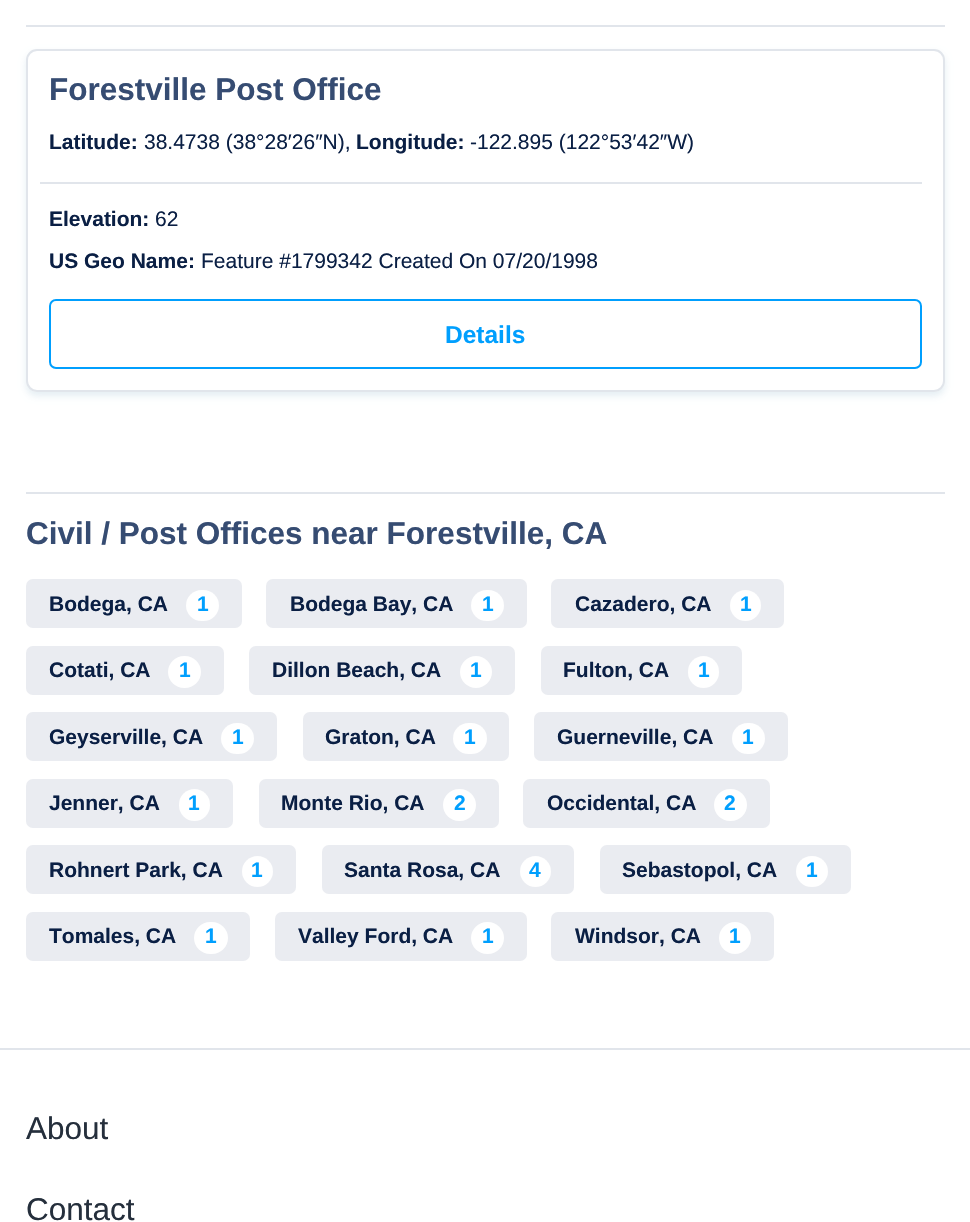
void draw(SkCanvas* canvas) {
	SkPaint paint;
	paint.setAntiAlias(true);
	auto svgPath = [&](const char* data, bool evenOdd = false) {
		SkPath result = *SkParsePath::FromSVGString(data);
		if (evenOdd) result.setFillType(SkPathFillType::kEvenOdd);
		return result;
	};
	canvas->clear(0xffffffff);
	paint.setColor(0xffe1e5eb);
	canvas->drawRect(SkRect::MakeXYWH(26, 25, 919, 2), paint);
	canvas->save();
	canvas->clipPath(svgPath("M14 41H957V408H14ZM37 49H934C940 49 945 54 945 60V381C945 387 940 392 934 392H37C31 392 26 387 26 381V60C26 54 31 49 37 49Z", true), true);
	paint.setColor(0x1a005689);
	paint.setMaskFilter(SkMaskFilter::MakeBlur(kNormal_SkBlurStyle, 3.5));
	canvas->drawRoundRect(SkRect::MakeXYWH(26, 53, 919, 343), 11, 11, paint);
	paint.setMaskFilter(nullptr);
	canvas->restore();
	paint.setStroke(true);
	paint.setStrokeWidth(2);
	paint.setColor(0xffe1e5eb);
	canvas->drawRoundRect(SkRect::MakeXYWH(27, 50, 917, 341), 10, 10, paint);
	SkFont f1(fontMgr->matchFamilyStyle("Liberation Sans", SkFontStyle::Bold()), 31.5);
	f1.setSubpixel(true);
	paint.setStroke(false);
	paint.setColor(0xff364c72);
	canvas->drawString("Forestville Post Office", 49, 100, f1, paint);
	SkFont f2(fontMgr->matchFamilyStyle("Liberation Sans", SkFontStyle::Bold()), 21);
	f2.setSubpixel(true);
	paint.setColor(0xff0a1f44);
	canvas->drawString("Latitude:", 49, 149, f2, paint);
	SkFont f3(fontMgr->matchFamilyStyle("Liberation Sans", SkFontStyle::Normal()), 21);
	f3.setSubpixel(true);
	canvas->drawString("38.4738 (38°28′26″N),", 144, 149, f3, paint);
	canvas->drawString("Longitude:", 356, 149, f2, paint);
	canvas->drawString("-122.895 (122°53′42″W)", 470, 149, f3, paint);
	paint.setColor(0xffe1e5eb);
	canvas->drawRect(SkRect::MakeXYWH(40, 182, 882, 2), paint);
	paint.setColor(0xff0a1f44);
	canvas->drawString("Elevation:", 49, 226, f2, paint);
	canvas->drawString("62", 155, 226, f3, paint);
	canvas->drawString("US Geo Name:", 49, 268, f2, paint);
	canvas->drawString("Feature #1799342 Created On 07/20/1998", 201, 268, f3, paint);
	paint.setStroke(true);
	paint.setColor(0xff009ffe);
	canvas->drawRoundRect(SkRect::MakeXYWH(50, 300, 871, 68), 6, 6, paint);
	SkFont f4(fontMgr->matchFamilyStyle("Liberation Sans", SkFontStyle::Bold()), 24.5);
	f4.setSubpixel(true);
	paint.setStroke(false);
	canvas->drawString("Details", 445, 343, f4, paint);
	paint.setColor(0xffe1e5eb);
	canvas->drawRect(SkRect::MakeXYWH(26, 492, 919, 2), paint);
	paint.setColor(0xff364c72);
	canvas->drawString("Civil / Post Offices near Forestville, CA", 26, 544, f1, paint);
	paint.setColor(0xffeaecf1);
	canvas->drawRoundRect(SkRect::MakeXYWH(26, 579, 216, 49), 7, 7, paint);
	paint.setColor(0xff0a1f44);
	canvas->drawString("Bodega, CA", 49, 611, f2, paint);
	paint.setColor(0xffffffff);
	canvas->drawRoundRect(SkRect::MakeXYWH(186, 590, 33, 31), 15.5, 15.5, paint);
	paint.setColor(0xff009ffe);
	canvas->drawString("1", 197, 611, f2, paint);
	paint.setColor(0xffeaecf1);
	canvas->drawRoundRect(SkRect::MakeXYWH(266, 579, 261, 49), 7, 7, paint);
	paint.setColor(0xff0a1f44);
	canvas->drawString("Bodega Bay, CA", 290, 611, f2, paint);
	paint.setColor(0xffffffff);
	canvas->drawRoundRect(SkRect::MakeXYWH(471, 590, 33, 31), 15.5, 15.5, paint);
	paint.setColor(0xff009ffe);
	canvas->drawString("1", 482, 611, f2, paint);
	paint.setColor(0xffeaecf1);
	canvas->drawRoundRect(SkRect::MakeXYWH(551, 579, 233, 49), 7, 7, paint);
	paint.setColor(0xff0a1f44);
	canvas->drawString("Cazadero, CA", 575, 611, f2, paint);
	paint.setColor(0xffffffff);
	canvas->drawCircle(745.5, 605.5, 15.5, paint);
	paint.setColor(0xff009ffe);
	canvas->drawString("1", 740, 611, f2, paint);
	paint.setColor(0xffeaecf1);
	canvas->drawRoundRect(SkRect::MakeXYWH(26, 646, 198, 49), 7, 7, paint);
	paint.setColor(0xff0a1f44);
	canvas->drawString("Cotati, CA", 49, 677, f2, paint);
	paint.setColor(0xffffffff);
	canvas->drawRoundRect(SkRect::MakeXYWH(168, 656, 33, 32), 16, 16, paint);
	paint.setColor(0xff009ffe);
	canvas->drawString("1", 179, 677, f2, paint);
	paint.setColor(0xffeaecf1);
	canvas->drawRoundRect(SkRect::MakeXYWH(249, 646, 266, 49), 7, 7, paint);
	paint.setColor(0xff0a1f44);
	canvas->drawString("Dillon Beach, CA", 272, 677, f2, paint);
	paint.setColor(0xffffffff);
	canvas->drawCircle(476, 672, 16, paint);
	paint.setColor(0xff009ffe);
	canvas->drawString("1", 470, 677, f2, paint);
	paint.setColor(0xffeaecf1);
	canvas->drawRoundRect(SkRect::MakeXYWH(541, 646, 201, 49), 7, 7, paint);
	paint.setColor(0xff0a1f44);
	canvas->drawString("Fulton, CA", 563, 677, f2, paint);
	paint.setColor(0xffffffff);
	canvas->drawRoundRect(SkRect::MakeXYWH(688, 656, 31, 32), 15.5, 15.5, paint);
	paint.setColor(0xff009ffe);
	canvas->drawString("1", 698, 677, f2, paint);
	paint.setColor(0xffeaecf1);
	canvas->drawRoundRect(SkRect::MakeXYWH(26, 712, 251, 49), 7, 7, paint);
	paint.setColor(0xff0a1f44);
	canvas->drawString("Geyserville, CA", 49, 744, f2, paint);
	paint.setColor(0xffffffff);
	canvas->drawRoundRect(SkRect::MakeXYWH(221, 723, 33, 31), 15.5, 15.5, paint);
	paint.setColor(0xff009ffe);
	canvas->drawString("1", 232, 744, f2, paint);
	paint.setColor(0xffeaecf1);
	canvas->drawRoundRect(SkRect::MakeXYWH(303, 712, 206, 49), 7, 7, paint);
	paint.setColor(0xff0a1f44);
	canvas->drawString("Graton, CA", 325, 744, f2, paint);
	paint.setColor(0xffffffff);
	canvas->drawRoundRect(SkRect::MakeXYWH(453, 723, 34, 31), 15.5, 15.5, paint);
	paint.setColor(0xff009ffe);
	canvas->drawString("1", 464, 744, f2, paint);
	paint.setColor(0xffeaecf1);
	canvas->drawRoundRect(SkRect::MakeXYWH(534, 712, 254, 49), 7, 7, paint);
	paint.setColor(0xff0a1f44);
	canvas->drawString("Guerneville, CA", 557, 744, f2, paint);
	paint.setColor(0xffffffff);
	canvas->drawRoundRect(SkRect::MakeXYWH(732, 723, 33, 31), 15.5, 15.5, paint);
	paint.setColor(0xff009ffe);
	canvas->drawString("1", 742, 744, f2, paint);
	paint.setColor(0xffeaecf1);
	canvas->drawRoundRect(SkRect::MakeXYWH(26, 779, 207, 49), 7, 7, paint);
	paint.setColor(0xff0a1f44);
	canvas->drawString("Jenner, CA", 49, 810, f2, paint);
	paint.setColor(0xffffffff);
	canvas->drawRoundRect(SkRect::MakeXYWH(179, 789, 31, 32), 15.5, 15.5, paint);
	paint.setColor(0xff009ffe);
	canvas->drawString("1", 188, 810, f2, paint);
	paint.setColor(0xffeaecf1);
	canvas->drawRoundRect(SkRect::MakeXYWH(259, 779, 240, 49), 7, 7, paint);
	paint.setColor(0xff0a1f44);
	canvas->drawString("Monte Rio, CA", 281, 810, f2, paint);
	paint.setColor(0xffffffff);
	canvas->drawRoundRect(SkRect::MakeXYWH(443, 789, 33, 32), 16, 16, paint);
	paint.setColor(0xff009ffe);
	canvas->drawString("2", 454, 810, f2, paint);
	paint.setColor(0xffeaecf1);
	canvas->drawRoundRect(SkRect::MakeXYWH(523, 779, 247, 49), 7, 7, paint);
	paint.setColor(0xff0a1f44);
	canvas->drawString("Occidental, CA", 547, 810, f2, paint);
	paint.setColor(0xffffffff);
	canvas->drawRoundRect(SkRect::MakeXYWH(714, 789, 33, 32), 16, 16, paint);
	paint.setColor(0xff009ffe);
	canvas->drawString("2", 724, 810, f2, paint);
	paint.setColor(0xffeaecf1);
	canvas->drawRoundRect(SkRect::MakeXYWH(26, 845, 270, 49), 7, 7, paint);
	paint.setColor(0xff0a1f44);
	canvas->drawString("Rohnert Park, CA", 49, 877, f2, paint);
	paint.setColor(0xffffffff);
	canvas->drawCircle(257.5, 871.5, 15.5, paint);
	paint.setColor(0xff009ffe);
	canvas->drawString("1", 251, 877, f2, paint);
	paint.setColor(0xffeaecf1);
	canvas->drawRoundRect(SkRect::MakeXYWH(322, 845, 252, 49), 7, 7, paint);
	paint.setColor(0xff0a1f44);
	canvas->drawString("Santa Rosa, CA", 344, 877, f2, paint);
	paint.setColor(0xffffffff);
	canvas->drawCircle(535.5, 871.5, 15.5, paint);
	paint.setColor(0xff009ffe);
	canvas->drawString("4", 529, 877, f2, paint);
	paint.setColor(0xffeaecf1);
	canvas->drawRoundRect(SkRect::MakeXYWH(600, 845, 251, 49), 7, 7, paint);
	paint.setColor(0xff0a1f44);
	canvas->drawString("Sebastopol, CA", 622, 877, f2, paint);
	paint.setColor(0xffffffff);
	canvas->drawRoundRect(SkRect::MakeXYWH(796, 856, 32, 31), 15.5, 15.5, paint);
	paint.setColor(0xff009ffe);
	canvas->drawString("1", 806, 877, f2, paint);
	paint.setColor(0xffeaecf1);
	canvas->drawRoundRect(SkRect::MakeXYWH(26, 912, 224, 49), 7, 7, paint);
	paint.setColor(0xff0a1f44);
	canvas->drawString("Tomales, CA", 49, 943, f2, paint);
	paint.setColor(0xffffffff);
	canvas->drawRoundRect(SkRect::MakeXYWH(194, 922, 34, 32), 16, 16, paint);
	paint.setColor(0xff009ffe);
	canvas->drawString("1", 205, 943, f2, paint);
	paint.setColor(0xffeaecf1);
	canvas->drawRoundRect(SkRect::MakeXYWH(275, 912, 252, 49), 7, 7, paint);
	paint.setColor(0xff0a1f44);
	canvas->drawString("Valley Ford, CA", 298, 943, f2, paint);
	paint.setColor(0xffffffff);
	canvas->drawRoundRect(SkRect::MakeXYWH(471, 922, 33, 32), 16, 16, paint);
	paint.setColor(0xff009ffe);
	canvas->drawString("1", 482, 943, f2, paint);
	paint.setColor(0xffeaecf1);
	canvas->drawRoundRect(SkRect::MakeXYWH(551, 912, 223, 49), 7, 7, paint);
	paint.setColor(0xff0a1f44);
	canvas->drawString("Windsor, CA", 575, 943, f2, paint);
	paint.setColor(0xffffffff);
	canvas->drawCircle(735, 938, 16, paint);
	paint.setColor(0xff009ffe);
	canvas->drawString("1", 729, 943, f2, paint);
	paint.setColor(0xffe1e5eb);
	canvas->drawRect(SkRect::MakeXYWH(0, 1048, 970, 2), paint);
	SkFont f5(fontMgr->matchFamilyStyle("Liberation Sans", SkFontStyle::Normal()), 31.5);
	f5.setSubpixel(true);
	paint.setColor(0xff252f3c);
	canvas->drawString("About", 26, 1139, f5, paint);
	canvas->drawString("Contact", 26, 1220, f5, paint);
}
